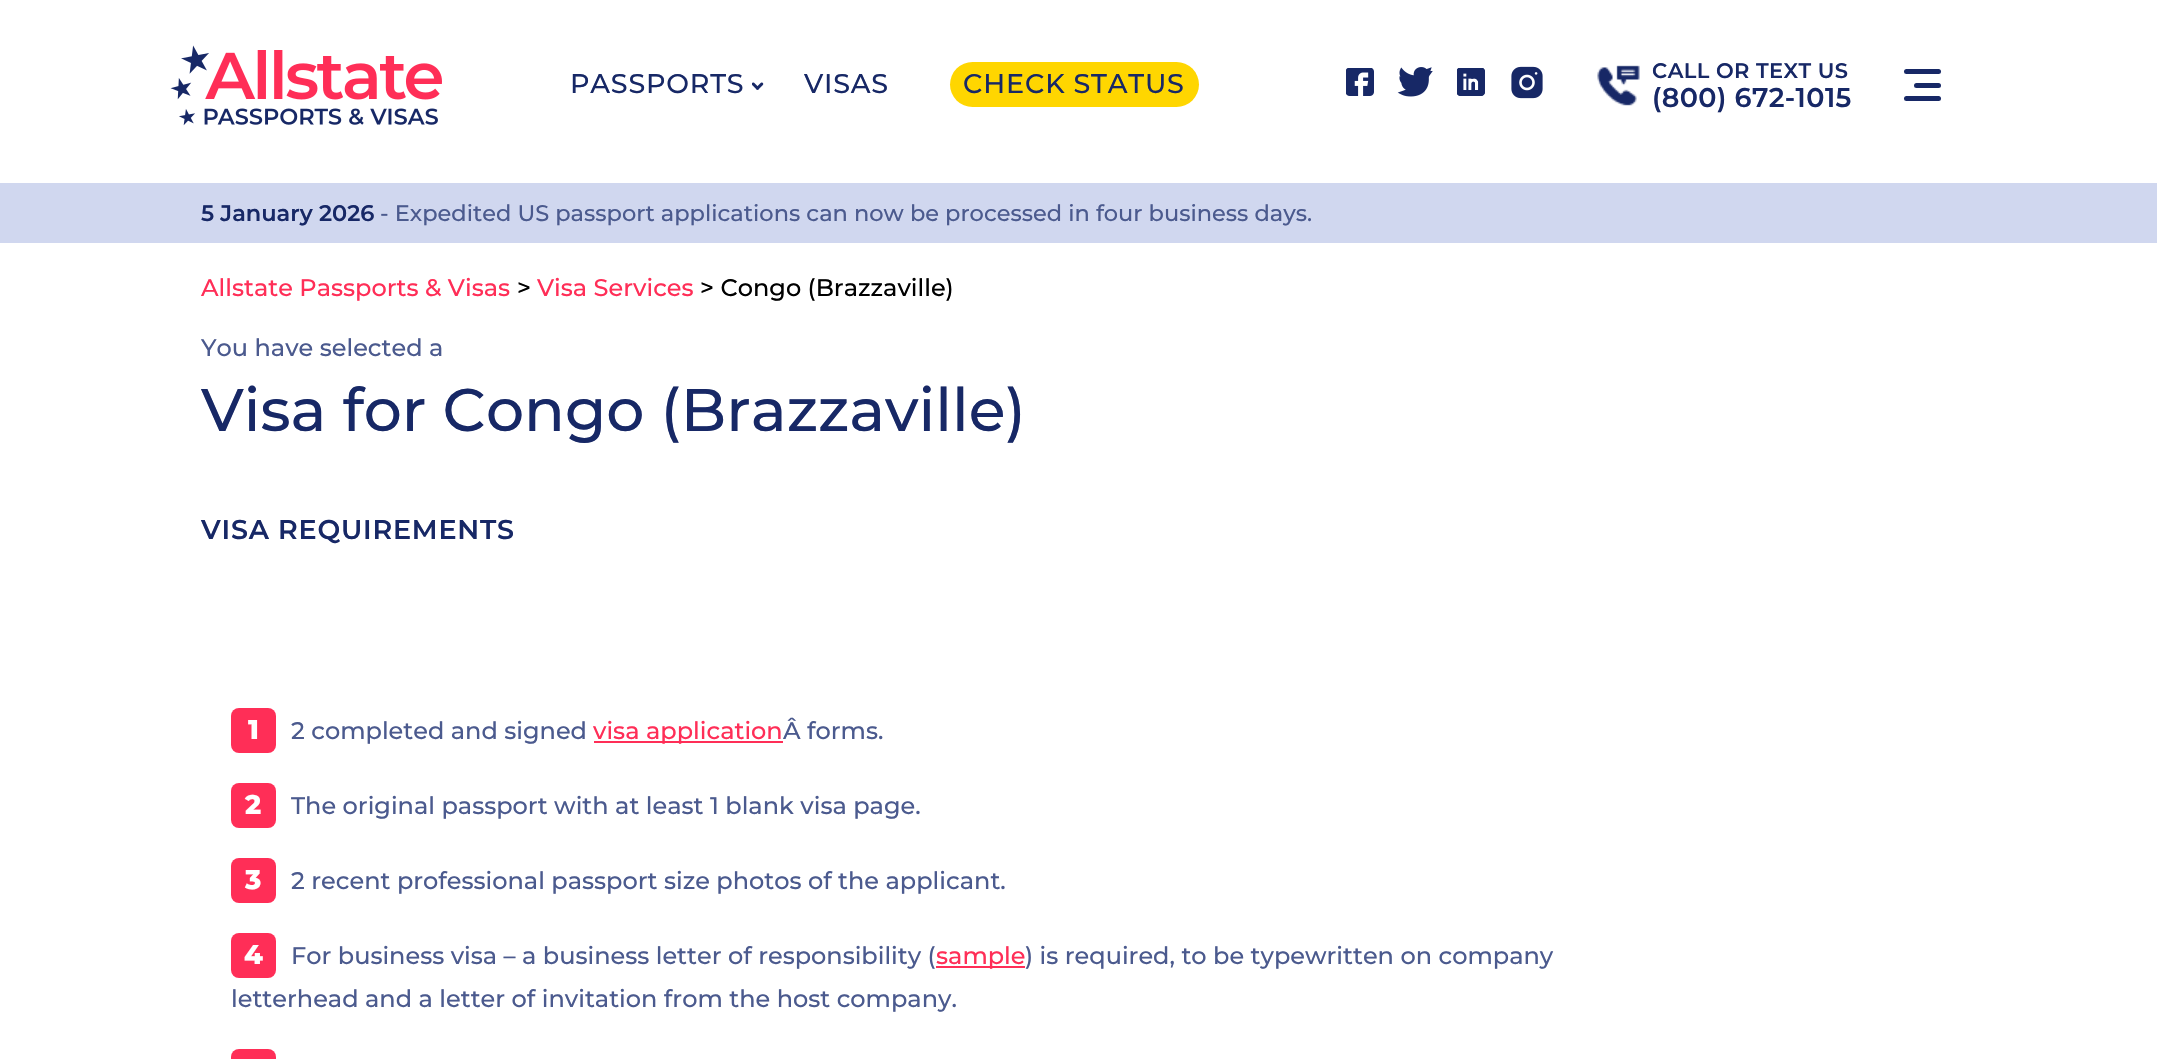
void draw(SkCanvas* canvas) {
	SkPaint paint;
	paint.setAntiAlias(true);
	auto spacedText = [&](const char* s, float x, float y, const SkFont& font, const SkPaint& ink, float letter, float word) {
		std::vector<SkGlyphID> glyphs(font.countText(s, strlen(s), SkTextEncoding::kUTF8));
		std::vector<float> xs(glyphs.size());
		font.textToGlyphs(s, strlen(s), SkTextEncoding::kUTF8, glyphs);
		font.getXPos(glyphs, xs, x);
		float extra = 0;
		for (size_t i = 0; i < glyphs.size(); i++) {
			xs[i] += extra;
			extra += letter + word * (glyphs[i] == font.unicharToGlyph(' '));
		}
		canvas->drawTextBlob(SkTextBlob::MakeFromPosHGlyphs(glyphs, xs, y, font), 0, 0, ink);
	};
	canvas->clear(0xffffffff);
	canvas->drawImageRect(SkImages::DeferredFromEncodedData(SkData::MakeFromFileName("img1.png")), SkRect::MakeXYWH(170, 45, 272, 81), SkSamplingOptions());
	SkFont f1(fontMgr->matchFamilyStyle("Montserrat", SkFontStyle(500, SkFontStyle::kNormal_Width, SkFontStyle::kUpright_Slant)), 27);
	f1.setSubpixel(true);
	paint.setColor(0xff172866);
	spacedText("PASSPORTS", 570, 93, f1, paint, 0.8, 0);
	canvas->drawImageRect(SkImages::DeferredFromEncodedData(SkData::MakeFromFileName("img2.png")), SkRect::MakeXYWH(752, 82, 12, 8), SkSamplingOptions());
	spacedText("VISAS", 804, 93, f1, paint, 0.8, 0);
	paint.setColor(0xffffd600);
	canvas->drawRoundRect(SkRect::MakeXYWH(950, 62, 249, 45), 22.5, 22.5, paint);
	paint.setColor(0xff172866);
	spacedText("CHECK STATUS", 963, 93, f1, paint, 0.8, 0);
	canvas->drawImageRect(SkImages::DeferredFromEncodedData(SkData::MakeFromFileName("img3.png")), SkRect::MakeXYWH(1346, 68, 28, 28), SkSamplingOptions());
	canvas->drawImageRect(SkImages::DeferredFromEncodedData(SkData::MakeFromFileName("img4.png")), SkRect::MakeXYWH(1397, 67, 36, 30), SkSamplingOptions());
	canvas->drawImageRect(SkImages::DeferredFromEncodedData(SkData::MakeFromFileName("img5.png")), SkRect::MakeXYWH(1457, 68, 28, 28), SkSamplingOptions());
	canvas->drawImageRect(SkImages::DeferredFromEncodedData(SkData::MakeFromFileName("img6.png")), SkRect::MakeXYWH(1511, 66, 32, 33), SkSamplingOptions());
	canvas->drawImageRect(SkImages::DeferredFromEncodedData(SkData::MakeFromFileName("img7.png")), SkRect::MakeXYWH(1597, 65, 43, 41), SkSamplingOptions());
	SkFont f2(fontMgr->matchFamilyStyle("Montserrat", SkFontStyle(600, SkFontStyle::kNormal_Width, SkFontStyle::kUpright_Slant)), 21);
	f2.setSubpixel(true);
	spacedText("CALL OR TEXT US", 1652, 78, f2, paint, 0.4, 0);
	SkFont f3(fontMgr->matchFamilyStyle("Montserrat", SkFontStyle(600, SkFontStyle::kNormal_Width, SkFontStyle::kUpright_Slant)), 27);
	f3.setSubpixel(true);
	spacedText("(800) 672-1015", 1652, 107, f3, paint, 0.4, 0);
	canvas->drawRoundRect(SkRect::MakeXYWH(1904, 69, 37, 5), 2.5, 2.5, paint);
	canvas->drawRoundRect(SkRect::MakeXYWH(1914, 83, 27, 5), 2.5, 2.5, paint);
	canvas->drawRoundRect(SkRect::MakeXYWH(1904, 96, 37, 5), 2.5, 2.5, paint);
	paint.setColor(0xffd0d7ef);
	canvas->drawRect(SkRect::MakeXYWH(0, 183, 2157, 60), paint);
	SkFont f4(fontMgr->matchFamilyStyle("Montserrat", SkFontStyle(600, SkFontStyle::kNormal_Width, SkFontStyle::kUpright_Slant)), 22.5);
	f4.setSubpixel(true);
	paint.setColor(0xff172866);
	canvas->drawString("5 January 2026", 201, 221, f4, paint);
	SkFont f5(fontMgr->matchFamilyStyle("Montserrat", SkFontStyle(500, SkFontStyle::kNormal_Width, SkFontStyle::kUpright_Slant)), 22.5);
	f5.setSubpixel(true);
	paint.setColor(0xff4b5a8e);
	canvas->drawString("- Expedited US passport applications can now be processed in four business days.", 380, 221, f5, paint);
	SkFont f6(fontMgr->matchFamilyStyle("Montserrat", SkFontStyle(500, SkFontStyle::kNormal_Width, SkFontStyle::kUpright_Slant)), 24);
	f6.setSubpixel(true);
	paint.setColor(0xffff2e57);
	canvas->drawString("Allstate Passports & Visas", 201, 296, f6, paint);
	paint.setColor(0xff000000);
	canvas->drawString(">", 517, 296, f6, paint);
	paint.setColor(0xffff2e57);
	canvas->drawString("Visa Services", 537, 296, f6, paint);
	paint.setColor(0xff000000);
	canvas->drawString("> Congo (Brazzaville)", 700, 296, f6, paint);
	paint.setColor(0xff4b5a8e);
	canvas->drawString("You have selected a", 201, 356, f6, paint);
	SkFont f7(fontMgr->matchFamilyStyle("Montserrat", SkFontStyle(500, SkFontStyle::kNormal_Width, SkFontStyle::kUpright_Slant)), 60);
	f7.setSubpixel(true);
	paint.setColor(0xff172866);
	canvas->drawString("Visa for Congo (Brazzaville)", 201, 431, f7, paint);
	spacedText("VISA REQUIREMENTS", 201, 539, f3, paint, 0.8, 0);
	paint.setColor(0xffff2e57);
	canvas->drawRoundRect(SkRect::MakeXYWH(231, 708, 45, 45), 8, 8, paint);
	SkFont f8(fontMgr->matchFamilyStyle("Montserrat", SkFontStyle(800, SkFontStyle::kNormal_Width, SkFontStyle::kUpright_Slant)), 27);
	f8.setSubpixel(true);
	paint.setColor(0xffffffff);
	canvas->drawString("1", 248, 739, f8, paint);
	paint.setColor(0xff4b5a8e);
	canvas->drawString("2 completed and signed", 291, 739, f6, paint);
	paint.setColor(0xffff2e57);
	canvas->drawRect(SkRect::MakeXYWH(594, 741, 189, 2), paint);
	canvas->drawString("visa application", 593, 739, f6, paint);
	paint.setColor(0xff4b5a8e);
	canvas->drawString("Â forms.", 783, 739, f6, paint);
	paint.setColor(0xffff2e57);
	canvas->drawRoundRect(SkRect::MakeXYWH(231, 783, 45, 45), 8, 8, paint);
	paint.setColor(0xffffffff);
	canvas->drawString("2", 245, 814, f8, paint);
	paint.setColor(0xff4b5a8e);
	canvas->drawString("The original passport with at least 1 blank visa page.", 291, 814, f6, paint);
	paint.setColor(0xffff2e57);
	canvas->drawRoundRect(SkRect::MakeXYWH(231, 858, 45, 45), 8, 8, paint);
	paint.setColor(0xffffffff);
	canvas->drawString("3", 245, 889, f8, paint);
	paint.setColor(0xff4b5a8e);
	canvas->drawString("2 recent professional passport size photos of the applicant.", 291, 889, f6, paint);
	paint.setColor(0xffff2e57);
	canvas->drawRoundRect(SkRect::MakeXYWH(231, 933, 45, 45), 8, 8, paint);
	paint.setColor(0xffffffff);
	canvas->drawString("4", 244, 964, f8, paint);
	paint.setColor(0xff4b5a8e);
	canvas->drawString("For business visa – a business letter of responsibility (", 291, 964, f6, paint);
	paint.setColor(0xffff2e57);
	canvas->drawRect(SkRect::MakeXYWH(936, 966, 89, 2), paint);
	canvas->drawString("sample", 936, 964, f6, paint);
	paint.setColor(0xff4b5a8e);
	canvas->drawString(") is required, to be typewritten on company", 1025, 964, f6, paint);
	canvas->drawString("letterhead and a letter of invitation from the host company.", 231, 1007, f6, paint);
	paint.setColor(0xffff2e57);
	canvas->drawRoundRect(SkRect::MakeXYWH(231, 1049, 45, 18), 8, 8, paint);
}
